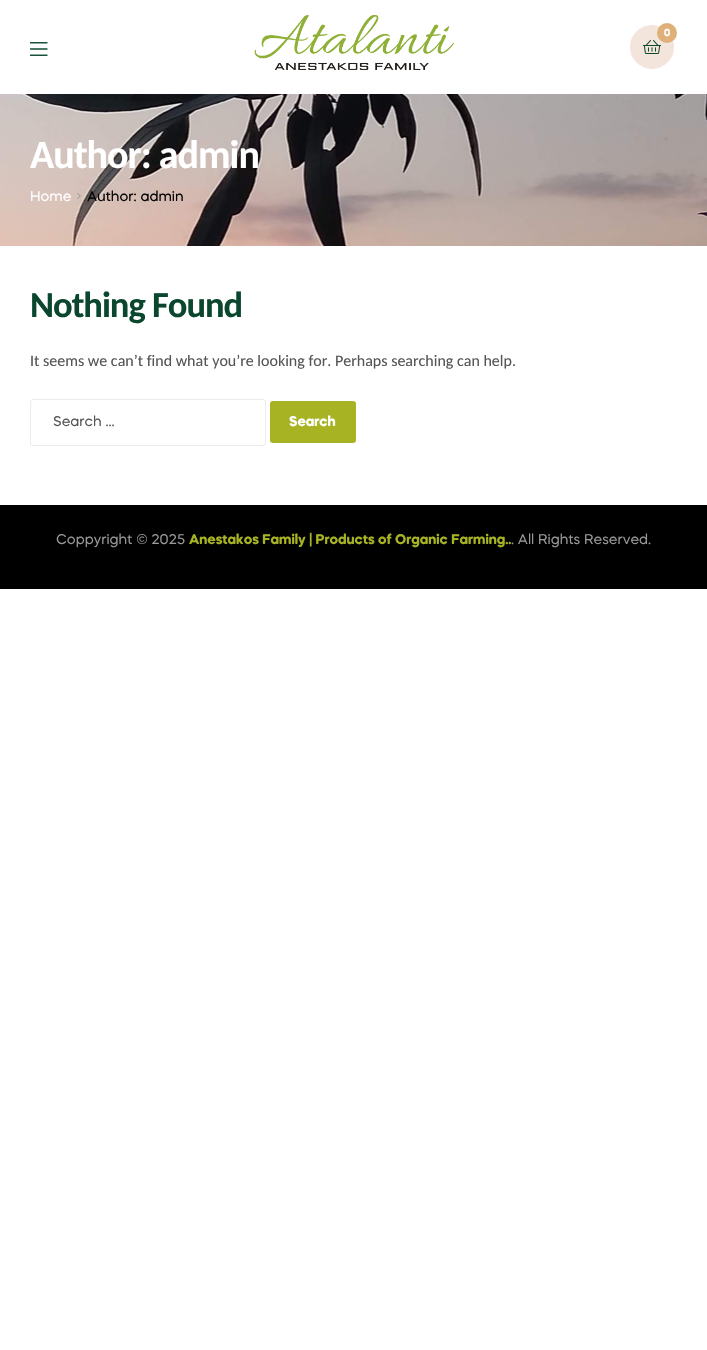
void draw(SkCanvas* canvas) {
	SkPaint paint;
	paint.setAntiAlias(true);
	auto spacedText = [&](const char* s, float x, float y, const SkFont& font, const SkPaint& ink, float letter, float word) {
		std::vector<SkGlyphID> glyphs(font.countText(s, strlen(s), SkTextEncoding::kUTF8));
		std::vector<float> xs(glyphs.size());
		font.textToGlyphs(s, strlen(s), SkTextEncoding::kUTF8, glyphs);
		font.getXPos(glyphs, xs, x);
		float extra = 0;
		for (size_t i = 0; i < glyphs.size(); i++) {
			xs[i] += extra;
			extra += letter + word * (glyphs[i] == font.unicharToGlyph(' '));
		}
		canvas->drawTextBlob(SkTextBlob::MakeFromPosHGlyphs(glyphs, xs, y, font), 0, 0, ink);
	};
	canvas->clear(0xffffffff);
	canvas->drawImageRect(SkImages::DeferredFromEncodedData(SkData::MakeFromFileName("img1.png")), SkRect::MakeXYWH(254, 15, 200, 55), SkSamplingOptions());
	paint.setColor(0xfff3e4dc);
	canvas->drawCircle(652, 47, 22, paint);
	canvas->drawImageRect(SkImages::DeferredFromEncodedData(SkData::MakeFromFileName("img2.png")), SkRect::MakeXYWH(643, 40, 18, 14), SkSamplingOptions());
	paint.setColor(0xffdfb178);
	canvas->drawCircle(667, 33, 10, paint);
	SkFont f1(fontMgr->matchFamilyStyle("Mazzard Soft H", SkFontStyle::Bold()), 10);
	f1.setSubpixel(true);
	paint.setColor(0xffffffff);
	canvas->drawString("0", 664, 36, f1, paint);
	canvas->drawImageRect(SkImages::DeferredFromEncodedData(SkData::MakeFromFileName("img3.png")), SkRect::MakeXYWH(30, 42, 18, 14), SkSamplingOptions());
	canvas->drawImageRect(SkImages::DeferredFromEncodedData(SkData::MakeFromFileName("img4.png")), SkRect::MakeXYWH(0, 94, 707, 152), SkSamplingOptions());
	SkFont f2(fontMgr->matchFamilyStyle("Carlito", SkFontStyle::Bold()), 40);
	f2.setSubpixel(true);
	spacedText("Author: admin", 30, 168, f2, paint, -1, 0);
	SkFont f3(fontMgr->matchFamilyStyle("Mazzard Soft H", SkFontStyle::Normal()), 14);
	f3.setSubpixel(true);
	canvas->drawString("Home", 30, 201, f3, paint);
	canvas->drawImageRect(SkImages::DeferredFromEncodedData(SkData::MakeFromFileName("img5.png")), SkRect::MakeXYWH(77, 192, 4, 7), SkSamplingOptions());
	paint.setColor(0xff000000);
	canvas->drawString("Author: admin", 87, 201, f3, paint);
	SkFont f4(fontMgr->matchFamilyStyle("Carlito", SkFontStyle::Bold()), 36.5);
	f4.setSubpixel(true);
	paint.setColor(0xff0a472e);
	spacedText("Nothing Found", 30, 317, f4, paint, -1, 0);
	SkFont f5(fontMgr->matchFamilyStyle("Carlito", SkFontStyle::Normal()), 16);
	f5.setSubpixel(true);
	paint.setColor(0xff555555);
	canvas->drawString("It seems we can’t find what you’re looking for. Perhaps searching can help.", 30, 366, f5, paint);
	paint.setStroke(true);
	paint.setStrokeWidth(1);
	paint.setColor(0xffebebeb);
	canvas->drawRoundRect(SkRect::MakeXYWH(30.5, 399.5, 235, 46), 2.5, 2.5, paint);
	paint.setStroke(false);
	paint.setColor(0xff555555);
	canvas->drawString("Search …", 53, 426, f3, paint);
	paint.setColor(0xffa8b324);
	canvas->drawRoundRect(SkRect::MakeXYWH(270, 401, 86, 42), 3, 3, paint);
	SkFont f6(fontMgr->matchFamilyStyle("Mazzard Soft H", SkFontStyle::Bold()), 14);
	f6.setSubpixel(true);
	paint.setColor(0xffffffff);
	canvas->drawString("Search", 289, 426, f6, paint);
	paint.setColor(0xff000000);
	canvas->drawRect(SkRect::MakeXYWH(0, 505, 707, 84), paint);
	paint.setColor(0xff999999);
	canvas->drawString("Coppyright © 2025", 56, 544, f3, paint);
	paint.setColor(0xffa8b324);
	canvas->drawString("Anestakos Family | Products of Organic Farming..", 189, 544, f6, paint);
	paint.setColor(0xff999999);
	canvas->drawString(". All Rights Reserved.", 511, 544, f3, paint);
}
